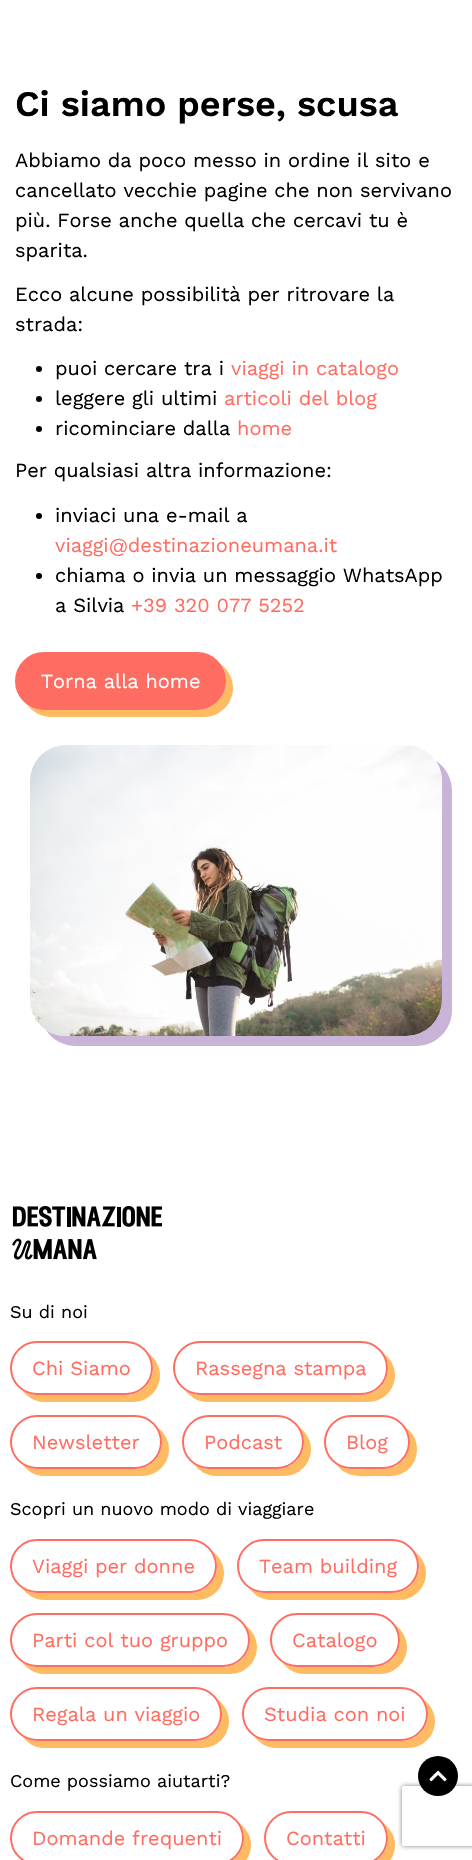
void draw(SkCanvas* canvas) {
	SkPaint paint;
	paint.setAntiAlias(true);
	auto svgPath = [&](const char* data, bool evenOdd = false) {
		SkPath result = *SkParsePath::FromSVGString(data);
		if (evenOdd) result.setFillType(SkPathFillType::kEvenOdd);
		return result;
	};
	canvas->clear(0xffffffff);
	SkFont f1(fontMgr->matchFamilyStyle("Work Sans", SkFontStyle(600, SkFontStyle::kNormal_Width, SkFontStyle::kUpright_Slant)), 36);
	f1.setSubpixel(true);
	paint.setColor(0xff000000);
	canvas->drawString("Ci siamo perse, scusa", 15, 116, f1, paint);
	SkFont f2(fontMgr->matchFamilyStyle("Work Sans", SkFontStyle::Normal()), 20);
	f2.setSubpixel(true);
	canvas->drawString("Abbiamo da poco messo in ordine il sito e", 15, 167, f2, paint);
	canvas->drawString("cancellato vecchie pagine che non servivano", 15, 197, f2, paint);
	canvas->drawString("più. Forse anche quella che cercavi tu è", 15, 227, f2, paint);
	canvas->drawString("sparita.", 15, 257, f2, paint);
	canvas->drawString("Ecco alcune possibilità per ritrovare la", 15, 301, f2, paint);
	canvas->drawString("strada:", 15, 331, f2, paint);
	canvas->drawCircle(39, 369, 3, paint);
	canvas->drawString("puoi cercare tra i", 55, 375, f2, paint);
	paint.setColor(0xffff6c61);
	canvas->drawString("viaggi in catalogo", 231, 375, f2, paint);
	paint.setColor(0xff000000);
	canvas->drawCircle(39, 399, 3, paint);
	canvas->drawString("leggere gli ultimi", 55, 405, f2, paint);
	paint.setColor(0xffff6c61);
	canvas->drawString("articoli del blog", 224, 405, f2, paint);
	paint.setColor(0xff000000);
	canvas->drawCircle(39, 429, 3, paint);
	canvas->drawString("ricominciare dalla", 55, 435, f2, paint);
	paint.setColor(0xffff6c61);
	canvas->drawString("home", 237, 435, f2, paint);
	paint.setColor(0xff000000);
	canvas->drawString("Per qualsiasi altra informazione:", 15, 477, f2, paint);
	canvas->drawCircle(39, 516, 3, paint);
	canvas->drawString("inviaci una e-mail a", 55, 522, f2, paint);
	paint.setColor(0xffff6c61);
	canvas->drawString("viaggi@destinazioneumana.it", 55, 552, f2, paint);
	paint.setColor(0xff000000);
	canvas->drawCircle(39, 576, 3, paint);
	canvas->drawString("chiama o invia un messaggio WhatsApp", 55, 582, f2, paint);
	canvas->drawString("a Silvia", 55, 612, f2, paint);
	paint.setColor(0xffff6c61);
	canvas->drawString("+39 320 077 5252", 131, 612, f2, paint);
	paint.setColor(0xffffbb61);
	canvas->drawPath(svgPath("M27 705C33 712 41 717 51 717H204C220 717 233 704 233 688C233 678 228 670 221 664C224 669 226 675 226 681C226 697 213 710 197 710H44C38 710 32 708 27 705Z"), paint);
	paint.setColor(0xffff6c61);
	canvas->drawRoundRect(SkRect::MakeXYWH(16, 653, 209, 56), 28, 28, paint);
	paint.setStroke(true);
	paint.setStrokeWidth(2);
	canvas->drawRoundRect(SkRect::MakeXYWH(16, 653, 209, 56), 28, 28, paint);
	paint.setStroke(false);
	paint.setColor(0xffffffff);
	canvas->drawString("Torna alla home", 41, 688, f2, paint);
	paint.setColor(0xffc9b3d7);
	canvas->drawPath(svgPath("M46 1030C52 1040 64 1046 76 1046H416C436 1046 452 1030 452 1010V791C452 779 446 767 436 761C440 767 442 774 442 781V1000C442 1020 426 1036 406 1036H66C59 1036 52 1034 46 1030Z"), paint);
	canvas->drawImageRect(SkImages::DeferredFromEncodedData(SkData::MakeFromFileName("img1.png")), SkRect::MakeXYWH(30, 745, 412, 291), SkSamplingOptions());
	canvas->drawImageRect(SkImages::DeferredFromEncodedData(SkData::MakeFromFileName("img2.png")), SkRect::MakeXYWH(12, 1206, 150, 54), SkSamplingOptions());
	SkFont f3(fontMgr->matchFamilyStyle("Work Sans", SkFontStyle::Normal()), 18);
	f3.setSubpixel(true);
	paint.setColor(0xff000000);
	canvas->drawString("Su di noi", 10, 1318, f3, paint);
	paint.setColor(0xffffbb61);
	canvas->drawPath(svgPath("M22 1390C27 1397 35 1402 44 1402H133C148 1402 160 1390 160 1375C160 1366 155 1358 148 1353C151 1357 153 1362 153 1368C153 1383 141 1395 126 1395H37C31 1395 26 1393 22 1390Z"), paint);
	paint.setColor(0xffffffff);
	canvas->drawRoundRect(SkRect::MakeXYWH(11, 1342, 141, 52), 26, 26, paint);
	paint.setStroke(true);
	paint.setColor(0xffff6c61);
	canvas->drawRoundRect(SkRect::MakeXYWH(11, 1342, 141, 52), 26, 26, paint);
	paint.setStroke(false);
	canvas->drawString("Chi Siamo", 32, 1375, f2, paint);
	paint.setColor(0xffffbb61);
	canvas->drawPath(svgPath("M185 1390C190 1397 198 1402 207 1402H368C383 1402 395 1390 395 1375C395 1366 390 1358 383 1353C386 1357 388 1362 388 1368C388 1383 376 1395 361 1395H200C194 1395 189 1393 185 1390Z"), paint);
	paint.setColor(0xffffffff);
	canvas->drawRoundRect(SkRect::MakeXYWH(174, 1342, 213, 52), 26, 26, paint);
	paint.setStroke(true);
	paint.setColor(0xffff6c61);
	canvas->drawRoundRect(SkRect::MakeXYWH(174, 1342, 213, 52), 26, 26, paint);
	paint.setStroke(false);
	canvas->drawString("Rassegna stampa", 195, 1375, f2, paint);
	paint.setColor(0xffffbb61);
	canvas->drawPath(svgPath("M22 1464C27 1471 35 1476 44 1476H142C157 1476 169 1464 169 1449C169 1440 164 1432 157 1427C160 1431 162 1436 162 1442C162 1457 150 1469 135 1469H37C31 1469 26 1467 22 1464Z"), paint);
	paint.setColor(0xffffffff);
	canvas->drawRoundRect(SkRect::MakeXYWH(11, 1416, 150, 52), 26, 26, paint);
	paint.setStroke(true);
	paint.setColor(0xffff6c61);
	canvas->drawRoundRect(SkRect::MakeXYWH(11, 1416, 150, 52), 26, 26, paint);
	paint.setStroke(false);
	canvas->drawString("Newsletter", 32, 1449, f2, paint);
	paint.setColor(0xffffbb61);
	canvas->drawPath(svgPath("M194 1464C199 1471 207 1476 216 1476H284C299 1476 311 1464 311 1449C311 1440 306 1432 299 1427C302 1431 304 1436 304 1442C304 1457 292 1469 277 1469H209C203 1469 198 1467 194 1464Z"), paint);
	paint.setColor(0xffffffff);
	canvas->drawRoundRect(SkRect::MakeXYWH(183, 1416, 120, 52), 26, 26, paint);
	paint.setStroke(true);
	paint.setColor(0xffff6c61);
	canvas->drawRoundRect(SkRect::MakeXYWH(183, 1416, 120, 52), 26, 26, paint);
	paint.setStroke(false);
	canvas->drawString("Podcast", 204, 1449, f2, paint);
	paint.setColor(0xffffbb61);
	canvas->drawPath(svgPath("M336 1464C346 1479 364 1476 379 1476C386 1476 394 1477 401 1474C420 1466 423 1439 405 1427C415 1440 409 1460 394 1467C385 1470 376 1469 367 1469C356 1469 345 1471 336 1464Z"), paint);
	paint.setColor(0xffffffff);
	canvas->drawRoundRect(SkRect::MakeXYWH(325, 1416, 84, 52), 26, 26, paint);
	paint.setStroke(true);
	paint.setColor(0xffff6c61);
	canvas->drawRoundRect(SkRect::MakeXYWH(325, 1416, 84, 52), 26, 26, paint);
	paint.setStroke(false);
	canvas->drawString("Blog", 346, 1449, f2, paint);
	paint.setColor(0xff000000);
	canvas->drawString("Scopri un nuovo modo di viaggiare", 10, 1515, f3, paint);
	paint.setColor(0xffffbb61);
	canvas->drawPath(svgPath("M22 1588C27 1595 35 1600 44 1600H197C212 1600 224 1588 224 1573C224 1564 219 1556 212 1551C215 1555 217 1560 217 1566C217 1581 205 1593 190 1593H37C31 1593 26 1591 22 1588Z"), paint);
	paint.setColor(0xffffffff);
	canvas->drawRoundRect(SkRect::MakeXYWH(11, 1540, 205, 52), 26, 26, paint);
	paint.setStroke(true);
	paint.setColor(0xffff6c61);
	canvas->drawRoundRect(SkRect::MakeXYWH(11, 1540, 205, 52), 26, 26, paint);
	paint.setStroke(false);
	canvas->drawString("Viaggi per donne", 32, 1573, f2, paint);
	paint.setColor(0xffffbb61);
	canvas->drawPath(svgPath("M249 1588C254 1595 262 1600 271 1600H399C414 1600 426 1588 426 1573C426 1564 421 1556 414 1551C417 1555 419 1560 419 1566C419 1581 407 1593 392 1593H264C258 1593 253 1591 249 1588Z"), paint);
	paint.setColor(0xffffffff);
	canvas->drawRoundRect(SkRect::MakeXYWH(238, 1540, 180, 52), 26, 26, paint);
	paint.setStroke(true);
	paint.setColor(0xffff6c61);
	canvas->drawRoundRect(SkRect::MakeXYWH(238, 1540, 180, 52), 26, 26, paint);
	paint.setStroke(false);
	canvas->drawString("Team building", 259, 1573, f2, paint);
	paint.setColor(0xffffbb61);
	canvas->drawPath(svgPath("M22 1662C27 1669 35 1674 44 1674H230C245 1674 257 1662 257 1647C257 1638 252 1630 245 1625C248 1629 250 1634 250 1640C250 1655 238 1667 223 1667H37C31 1667 26 1665 22 1662Z"), paint);
	paint.setColor(0xffffffff);
	canvas->drawRoundRect(SkRect::MakeXYWH(11, 1614, 238, 52), 26, 26, paint);
	paint.setStroke(true);
	paint.setColor(0xffff6c61);
	canvas->drawRoundRect(SkRect::MakeXYWH(11, 1614, 238, 52), 26, 26, paint);
	paint.setStroke(false);
	canvas->drawString("Parti col tuo gruppo", 32, 1647, f2, paint);
	paint.setColor(0xffffbb61);
	canvas->drawPath(svgPath("M282 1662C287 1669 295 1674 304 1674H380C395 1674 407 1662 407 1647C407 1638 402 1630 395 1625C398 1629 400 1634 400 1640C400 1655 388 1667 373 1667H297C291 1667 286 1665 282 1662Z"), paint);
	paint.setColor(0xffffffff);
	canvas->drawRoundRect(SkRect::MakeXYWH(271, 1614, 128, 52), 26, 26, paint);
	paint.setStroke(true);
	paint.setColor(0xffff6c61);
	canvas->drawRoundRect(SkRect::MakeXYWH(271, 1614, 128, 52), 26, 26, paint);
	paint.setStroke(false);
	canvas->drawString("Catalogo", 292, 1647, f2, paint);
	paint.setColor(0xffffbb61);
	canvas->drawPath(svgPath("M22 1736C27 1743 35 1748 44 1748H202C217 1748 229 1736 229 1721C229 1712 224 1704 217 1699C220 1703 222 1708 222 1714C222 1729 210 1741 195 1741H37C31 1741 26 1739 22 1736Z"), paint);
	paint.setColor(0xffffffff);
	canvas->drawRoundRect(SkRect::MakeXYWH(11, 1688, 210, 52), 26, 26, paint);
	paint.setStroke(true);
	paint.setColor(0xffff6c61);
	canvas->drawRoundRect(SkRect::MakeXYWH(11, 1688, 210, 52), 26, 26, paint);
	paint.setStroke(false);
	canvas->drawString("Regala un viaggio", 32, 1721, f2, paint);
	paint.setColor(0xffffbb61);
	canvas->drawPath(svgPath("M254 1736C259 1743 267 1748 276 1748H408C423 1748 435 1736 435 1721C435 1712 430 1704 423 1699C426 1703 428 1708 428 1714C428 1729 416 1741 401 1741H269C263 1741 258 1739 254 1736Z"), paint);
	paint.setColor(0xffffffff);
	canvas->drawRoundRect(SkRect::MakeXYWH(243, 1688, 184, 52), 26, 26, paint);
	paint.setStroke(true);
	paint.setColor(0xffff6c61);
	canvas->drawRoundRect(SkRect::MakeXYWH(243, 1688, 184, 52), 26, 26, paint);
	paint.setStroke(false);
	canvas->drawString("Studia con noi", 264, 1721, f2, paint);
	paint.setColor(0xff000000);
	canvas->drawString("Come possiamo aiutarti?", 10, 1787, f3, paint);
	paint.setColor(0xffffbb61);
	canvas->drawPath(svgPath("M22 1860C27 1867 35 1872 44 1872H224C239 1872 251 1860 251 1845C251 1836 246 1828 239 1823C242 1827 244 1832 244 1838C244 1853 232 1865 217 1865H37C31 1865 26 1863 22 1860Z"), paint);
	paint.setColor(0xffffffff);
	canvas->drawRoundRect(SkRect::MakeXYWH(11, 1812, 232, 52), 26, 26, paint);
	paint.setStroke(true);
	paint.setColor(0xffff6c61);
	canvas->drawRoundRect(SkRect::MakeXYWH(11, 1812, 232, 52), 26, 26, paint);
	paint.setStroke(false);
	canvas->drawString("Domande frequenti", 32, 1845, f2, paint);
	paint.setColor(0xffffbb61);
	canvas->drawPath(svgPath("M276 1860C281 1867 289 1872 298 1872H368C383 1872 395 1860 395 1845C395 1836 390 1828 383 1823C386 1827 388 1832 388 1838C388 1853 376 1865 361 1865H291C285 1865 280 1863 276 1860Z"), paint);
	paint.setColor(0xffffffff);
	canvas->drawRoundRect(SkRect::MakeXYWH(265, 1812, 122, 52), 26, 26, paint);
	paint.setStroke(true);
	paint.setColor(0xffff6c61);
	canvas->drawRoundRect(SkRect::MakeXYWH(265, 1812, 122, 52), 26, 26, paint);
	paint.setStroke(false);
	canvas->drawString("Contatti", 286, 1845, f2, paint);
	canvas->save();
	canvas->clipPath(svgPath("M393 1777H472V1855H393ZM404 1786H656C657 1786 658 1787 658 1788V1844C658 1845 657 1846 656 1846H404C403 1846 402 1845 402 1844V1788C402 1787 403 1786 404 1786Z", true), true);
	paint.setColor(0xff808080);
	paint.setMaskFilter(SkMaskFilter::MakeBlur(kNormal_SkBlurStyle, 2.5));
	canvas->drawRoundRect(SkRect::MakeXYWH(402, 1786, 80, 60), 2, 2, paint);
	paint.setMaskFilter(nullptr);
	canvas->restore();
	paint.setColor(0xff000000);
	canvas->drawCircle(438, 1776, 20, paint);
	canvas->drawImageRect(SkImages::DeferredFromEncodedData(SkData::MakeFromFileName("img3.png")), SkRect::MakeXYWH(429, 1770, 18, 12), SkSamplingOptions());
}
